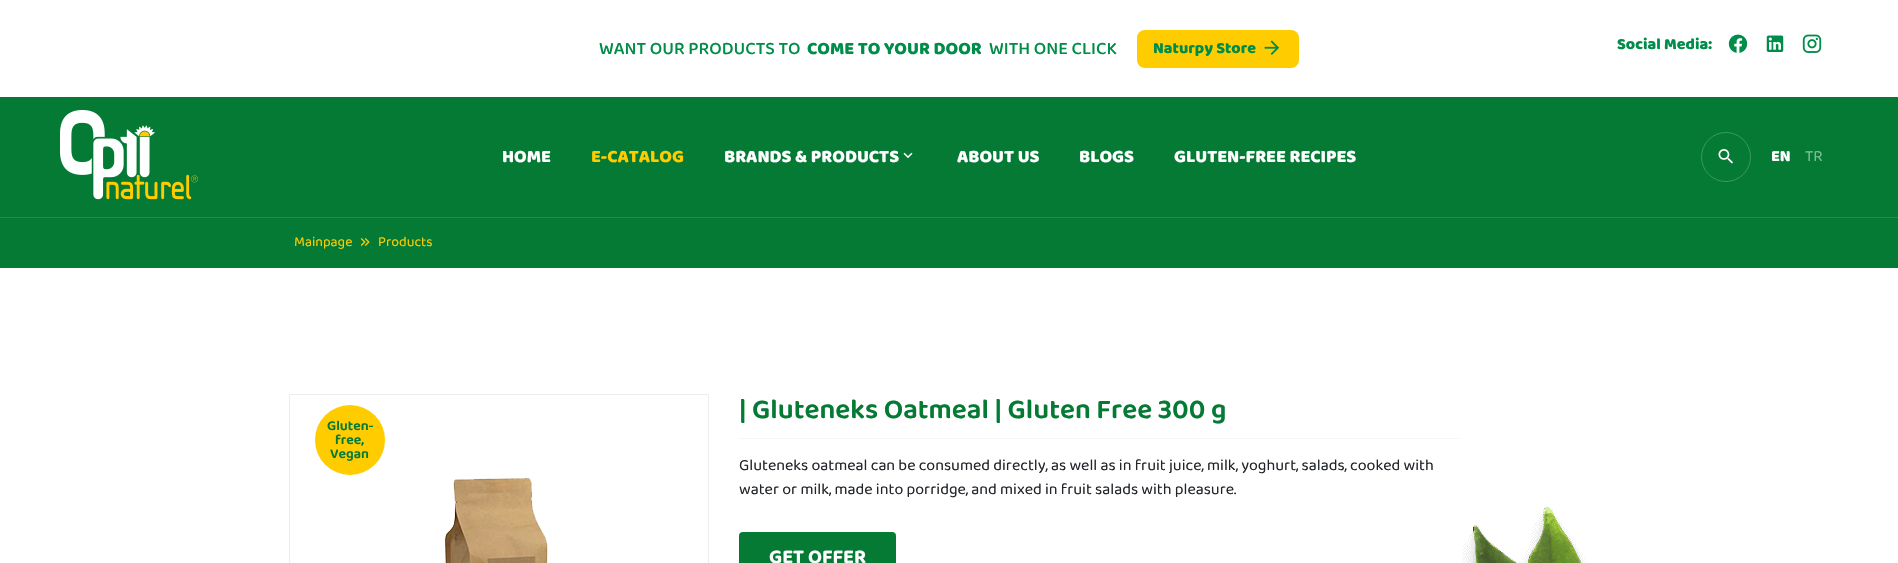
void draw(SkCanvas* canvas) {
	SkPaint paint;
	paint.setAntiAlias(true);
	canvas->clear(0xffffffff);
	SkFont f1(fontMgr->matchFamilyStyle("Baloo Thambi 2", SkFontStyle(500, SkFontStyle::kNormal_Width, SkFontStyle::kUpright_Slant)), 18);
	f1.setSubpixel(true);
	paint.setColor(0xff008c49);
	canvas->drawString("WANT OUR PRODUCTS TO", 599, 54, f1, paint);
	SkFont f2(fontMgr->matchFamilyStyle("Baloo Thambi 2", SkFontStyle(800, SkFontStyle::kNormal_Width, SkFontStyle::kUpright_Slant)), 18);
	f2.setSubpixel(true);
	canvas->drawString("COME TO YOUR DOOR", 807, 54, f2, paint);
	canvas->drawString("WITH ONE CLICK", 989, 54, f1, paint);
	paint.setColor(0xffffcc00);
	canvas->drawRoundRect(SkRect::MakeXYWH(1137, 30, 162, 38), 8, 8, paint);
	SkFont f3(fontMgr->matchFamilyStyle("Baloo Thambi 2", SkFontStyle(800, SkFontStyle::kNormal_Width, SkFontStyle::kUpright_Slant)), 16);
	f3.setSubpixel(true);
	paint.setColor(0xff008c49);
	canvas->drawString("Naturpy Store", 1153, 53, f3, paint);
	canvas->drawImageRect(SkImages::DeferredFromEncodedData(SkData::MakeFromFileName("img1.png")), SkRect::MakeXYWH(1264, 40, 16, 15), SkSamplingOptions());
	canvas->drawString("Social Media:", 1617, 49, f3, paint);
	canvas->drawImageRect(SkImages::DeferredFromEncodedData(SkData::MakeFromFileName("img2.png")), SkRect::MakeXYWH(1728, 34, 20, 19), SkSamplingOptions());
	canvas->drawImageRect(SkImages::DeferredFromEncodedData(SkData::MakeFromFileName("img3.png")), SkRect::MakeXYWH(1766, 35, 18, 17), SkSamplingOptions());
	canvas->drawImageRect(SkImages::DeferredFromEncodedData(SkData::MakeFromFileName("img4.png")), SkRect::MakeXYWH(1802, 34, 20, 19), SkSamplingOptions());
	paint.setColor(0xff047a35);
	canvas->drawRect(SkRect::MakeXYWH(0, 97, 1898, 120), paint);
	canvas->drawImageRect(SkImages::DeferredFromEncodedData(SkData::MakeFromFileName("img5.png")), SkRect::MakeXYWH(60, 110, 138, 90), SkSamplingOptions());
	paint.setColor(0xffffffff);
	canvas->drawString("HOME", 502, 162, f2, paint);
	paint.setColor(0xffffcc00);
	canvas->drawString("E-CATALOG", 591, 162, f2, paint);
	paint.setColor(0xffffffff);
	canvas->drawString("BRANDS & PRODUCTS", 724, 162, f2, paint);
	canvas->drawImageRect(SkImages::DeferredFromEncodedData(SkData::MakeFromFileName("img6.png")), SkRect::MakeXYWH(903, 152, 10, 7), SkSamplingOptions());
	canvas->drawString("ABOUT US", 957, 162, f2, paint);
	canvas->drawString("BLOGS", 1079, 162, f2, paint);
	canvas->drawString("GLUTEN-FREE RECIPES", 1174, 162, f2, paint);
	paint.setStroke(true);
	paint.setStrokeWidth(1);
	paint.setColor(0xff3b9761);
	canvas->drawCircle(1726, 157, 24.5, paint);
	canvas->drawImageRect(SkImages::DeferredFromEncodedData(SkData::MakeFromFileName("img7.png")), SkRect::MakeXYWH(1718, 149, 15, 15), SkSamplingOptions());
	paint.setStroke(false);
	paint.setColor(0xffffffff);
	canvas->drawString("EN", 1771, 161, f3, paint);
	SkFont f4(fontMgr->matchFamilyStyle("Baloo Thambi 2", SkFontStyle::Normal()), 16);
	f4.setSubpixel(true);
	paint.setColor(0xff82bd9a);
	canvas->drawString("TR", 1805, 161, f4, paint);
	paint.setColor(0xff047a35);
	canvas->drawRect(SkRect::MakeXYWH(0, 218, 1898, 50), paint);
	paint.setColor(0xff258b4f);
	canvas->drawRect(SkRect::MakeXYWH(0, 217, 1898, 1), paint);
	SkFont f5(fontMgr->matchFamilyStyle("Baloo Thambi 2", SkFontStyle::Normal()), 14);
	f5.setSubpixel(true);
	paint.setColor(0xffffcc00);
	canvas->drawString("Mainpage", 294, 246, f5, paint);
	canvas->drawImageRect(SkImages::DeferredFromEncodedData(SkData::MakeFromFileName("img8.png")), SkRect::MakeXYWH(360, 238, 10, 8), SkSamplingOptions());
	canvas->drawString("Products", 378, 246, f5, paint);
	paint.setStroke(true);
	paint.setColor(0xffededed);
	canvas->drawRect(SkRect::MakeXYWH(289.5, 394.5, 419, 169), paint);
	paint.setStroke(false);
	paint.setColor(0xffffcc00);
	canvas->drawCircle(350, 440, 35, paint);
	SkFont f6(fontMgr->matchFamilyStyle("Baloo Thambi 2", SkFontStyle(600, SkFontStyle::kNormal_Width, SkFontStyle::kUpright_Slant)), 14);
	f6.setSubpixel(true);
	paint.setColor(0xff047a35);
	canvas->drawString("Gluten-", 327, 430, f6, paint);
	canvas->drawString("free,", 335, 444, f6, paint);
	canvas->drawString("Vegan", 330, 458, f6, paint);
	canvas->drawImageRect(SkImages::DeferredFromEncodedData(SkData::MakeFromFileName("img9.png")), SkRect::MakeXYWH(445, 478, 103, 85), SkSamplingOptions());
	paint.setColor(0xfff5f5f5);
	canvas->drawRect(SkRect::MakeXYWH(739, 438, 720, 1), paint);
	SkFont f7(fontMgr->matchFamilyStyle("Baloo Thambi 2", SkFontStyle(600, SkFontStyle::kNormal_Width, SkFontStyle::kUpright_Slant)), 28);
	f7.setSubpixel(true);
	paint.setColor(0xff047a35);
	canvas->drawString("| Gluteneks Oatmeal | Gluten Free 300 g", 739, 418, f7, paint);
	paint.setColor(0xff212529);
	canvas->drawString("Gluteneks oatmeal can be consumed directly, as well as in fruit juice, milk, yoghurt, salads, cooked with", 739, 470, f4, paint);
	canvas->drawString("water or milk, made into porridge, and mixed in fruit salads with pleasure.", 739, 494, f4, paint);
	paint.setColor(0xff047a35);
	canvas->drawRoundRect(SkRect::MakeXYWH(739, 532, 157, 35), 4, 4, paint);
	SkFont f8(fontMgr->matchFamilyStyle("Baloo Thambi 2", SkFontStyle::Bold()), 20);
	f8.setSubpixel(true);
	paint.setColor(0xffffffff);
	canvas->drawString("GET OFFER", 769, 563, f8, paint);
	canvas->drawImageRect(SkImages::DeferredFromEncodedData(SkData::MakeFromFileName("img10.png")), SkRect::MakeXYWH(1462, 507, 125, 56), SkSamplingOptions());
}
